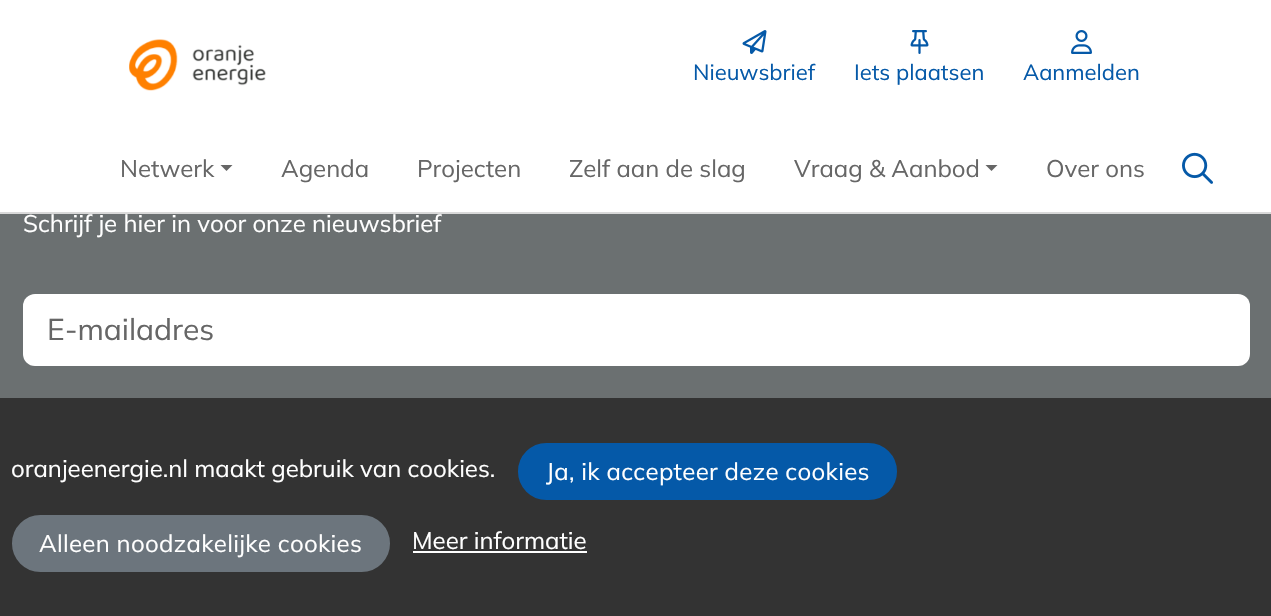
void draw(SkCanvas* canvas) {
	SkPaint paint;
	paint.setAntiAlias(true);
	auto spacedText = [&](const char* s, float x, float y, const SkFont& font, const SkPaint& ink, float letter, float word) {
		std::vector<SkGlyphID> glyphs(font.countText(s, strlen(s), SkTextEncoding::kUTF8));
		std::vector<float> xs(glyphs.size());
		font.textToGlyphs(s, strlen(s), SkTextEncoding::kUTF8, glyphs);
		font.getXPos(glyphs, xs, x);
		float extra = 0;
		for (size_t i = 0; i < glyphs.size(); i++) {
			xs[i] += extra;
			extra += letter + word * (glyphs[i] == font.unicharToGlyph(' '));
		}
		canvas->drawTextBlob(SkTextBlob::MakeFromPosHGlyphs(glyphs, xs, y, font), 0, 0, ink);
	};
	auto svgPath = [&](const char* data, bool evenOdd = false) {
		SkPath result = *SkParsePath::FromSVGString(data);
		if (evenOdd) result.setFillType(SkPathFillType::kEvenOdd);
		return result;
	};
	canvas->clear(0xff6b7071);
	paint.setColor(0xffffffff);
	canvas->drawRect(SkRect::MakeXYWH(0, 0, 1271, 212), paint);
	paint.setColor(0xffd9d9d9);
	canvas->drawRect(SkRect::MakeXYWH(0, 212, 1271, 2), paint);
	canvas->drawImageRect(SkImages::DeferredFromEncodedData(SkData::MakeFromFileName("img1.png")), SkRect::MakeXYWH(129, 39, 137, 52), SkSamplingOptions());
	canvas->drawImageRect(SkImages::DeferredFromEncodedData(SkData::MakeFromFileName("img2.png")), SkRect::MakeXYWH(742, 30, 25, 24), SkSamplingOptions());
	SkFont f1(fontMgr->matchFamilyStyle("Mulish", SkFontStyle(200, SkFontStyle::kNormal_Width, SkFontStyle::kUpright_Slant)), 22);
	f1.setSubpixel(true);
	paint.setColor(0xff0559a8);
	canvas->drawString("Nieuwsbrief", 693, 80, f1, paint);
	canvas->drawImageRect(SkImages::DeferredFromEncodedData(SkData::MakeFromFileName("img3.png")), SkRect::MakeXYWH(910, 30, 19, 24), SkSamplingOptions());
	canvas->drawString("Iets plaatsen", 854, 80, f1, paint);
	canvas->drawImageRect(SkImages::DeferredFromEncodedData(SkData::MakeFromFileName("img4.png")), SkRect::MakeXYWH(1071, 30, 21, 24), SkSamplingOptions());
	canvas->drawString("Aanmelden", 1023, 80, f1, paint);
	SkFont f2(fontMgr->matchFamilyStyle("Mulish", SkFontStyle(200, SkFontStyle::kNormal_Width, SkFontStyle::kUpright_Slant)), 24);
	f2.setSubpixel(true);
	paint.setColor(0xff666666);
	canvas->drawString("Netwerk", 120, 177, f2, paint);
	canvas->drawPath(svgPath("M220.5 165H232.5L226.5 171Z"), paint);
	canvas->drawString("Agenda", 281, 177, f2, paint);
	canvas->drawString("Projecten", 417, 177, f2, paint);
	canvas->drawString("Zelf aan de slag", 569, 177, f2, paint);
	canvas->drawString("Vraag & Aanbod", 794, 177, f2, paint);
	canvas->drawPath(svgPath("M985.5 165H997.5L991.5 171Z"), paint);
	canvas->drawString("Over ons", 1046, 177, f2, paint);
	canvas->drawImageRect(SkImages::DeferredFromEncodedData(SkData::MakeFromFileName("img5.png")), SkRect::MakeXYWH(1182, 152, 31, 32), SkSamplingOptions());
	paint.setColor(0xffffffff);
	canvas->drawString("Schrijf je hier in voor onze nieuwsbrief", 23, 232, f2, paint);
	canvas->drawRoundRect(SkRect::MakeXYWH(23, 294, 1227, 72), 12, 12, paint);
	SkFont f3(fontMgr->matchFamilyStyle("Mulish", SkFontStyle(200, SkFontStyle::kNormal_Width, SkFontStyle::kUpright_Slant)), 30);
	f3.setSubpixel(true);
	paint.setColor(0xff666666);
	canvas->drawString("E-mailadres", 47, 340, f3, paint);
	paint.setColor(0xff333333);
	canvas->drawRect(SkRect::MakeXYWH(0, 398, 1271, 218), paint);
	paint.setColor(0xffffffff);
	canvas->drawString("oranjeenergie.nl maakt gebruik van cookies.", 11, 477, f2, paint);
	paint.setColor(0xff0559a8);
	canvas->drawRoundRect(SkRect::MakeXYWH(519, 444, 377, 55), 27.5, 27.5, paint);
	paint.setStroke(true);
	paint.setStrokeWidth(2);
	canvas->drawRoundRect(SkRect::MakeXYWH(519, 444, 377, 55), 27.5, 27.5, paint);
	paint.setStroke(false);
	paint.setColor(0xffffffff);
	spacedText("Ja, ik accepteer deze cookies", 546, 480, f2, paint, 0.3, 0);
	paint.setColor(0xff6c757d);
	canvas->drawRoundRect(SkRect::MakeXYWH(13, 516, 376, 55), 27.5, 27.5, paint);
	paint.setStroke(true);
	canvas->drawRoundRect(SkRect::MakeXYWH(13, 516, 376, 55), 27.5, 27.5, paint);
	paint.setStroke(false);
	paint.setColor(0xffffffff);
	spacedText("Alleen noodzakelijke cookies", 39, 552, f2, paint, 0.3, 0);
	canvas->drawString("Meer informatie", 412, 549, f2, paint);
	canvas->drawRect(SkRect::MakeXYWH(413, 551, 174, 2), paint);
}
